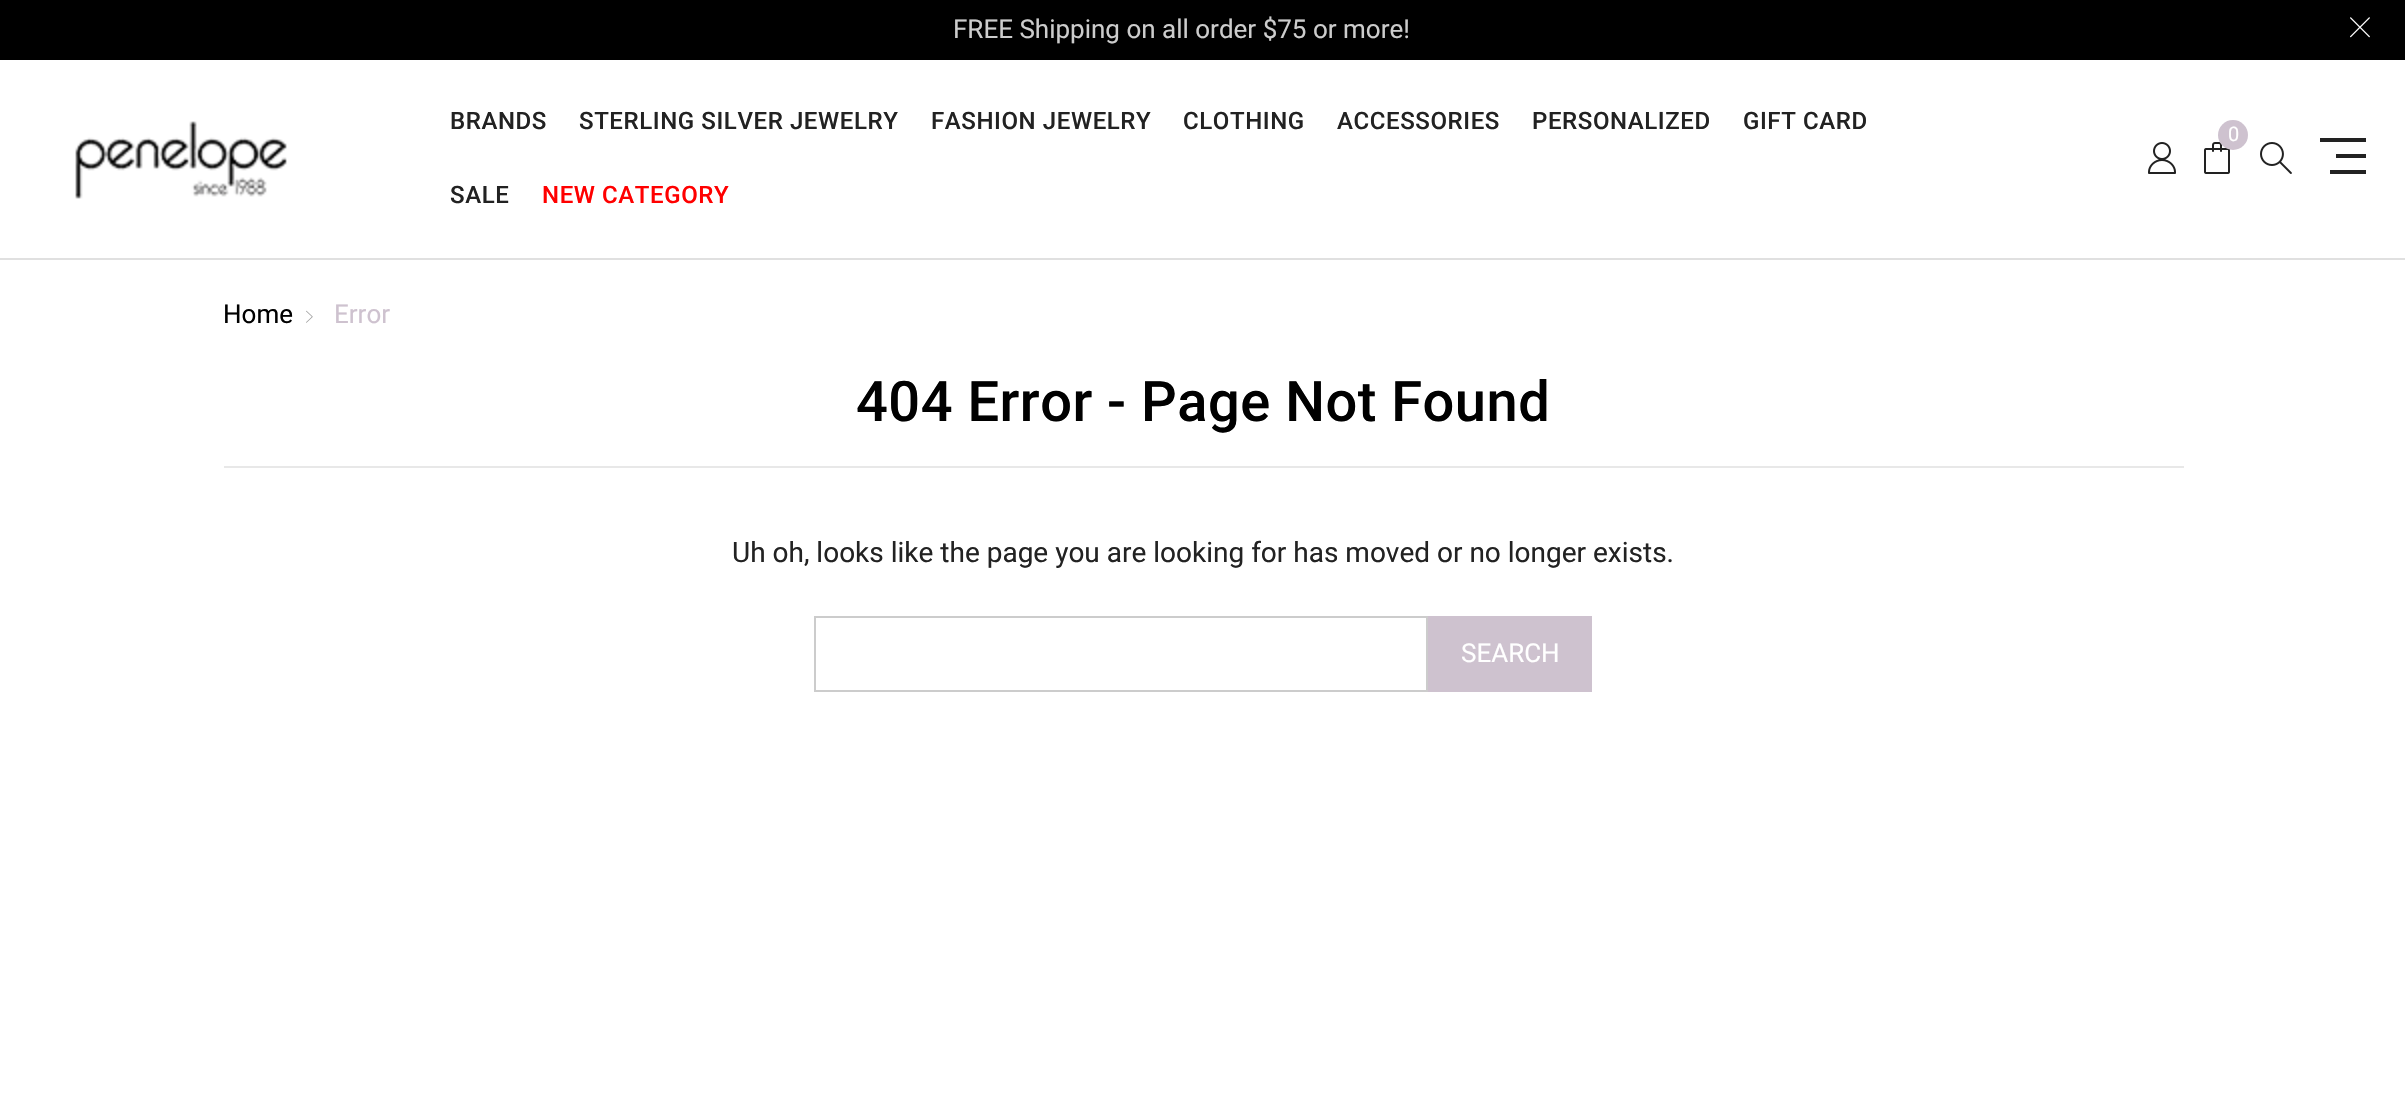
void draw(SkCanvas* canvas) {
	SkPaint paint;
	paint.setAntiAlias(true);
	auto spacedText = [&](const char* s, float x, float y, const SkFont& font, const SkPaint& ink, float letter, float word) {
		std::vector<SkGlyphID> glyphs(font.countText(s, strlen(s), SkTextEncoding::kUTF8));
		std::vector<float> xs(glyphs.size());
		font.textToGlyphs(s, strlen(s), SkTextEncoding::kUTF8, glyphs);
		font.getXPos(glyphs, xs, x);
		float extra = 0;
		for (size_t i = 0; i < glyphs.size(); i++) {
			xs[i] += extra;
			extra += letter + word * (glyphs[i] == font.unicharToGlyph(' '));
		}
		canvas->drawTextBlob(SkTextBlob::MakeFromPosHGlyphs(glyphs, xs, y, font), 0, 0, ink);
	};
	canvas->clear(0xffffffff);
	paint.setColor(0xffe0e0e0);
	canvas->drawRect(SkRect::MakeXYWH(0, 258, 2405, 2), paint);
	paint.setColor(0xff000000);
	canvas->drawRect(SkRect::MakeXYWH(0, 0, 2405, 60), paint);
	SkFont f1(fontMgr->matchFamilyStyle("Roboto", SkFontStyle::Normal()), 26);
	f1.setSubpixel(true);
	paint.setColor(0xffcccccc);
	canvas->drawString("FREE Shipping on all order $75 or more!", 953, 38, f1, paint);
	canvas->drawImageRect(SkImages::DeferredFromEncodedData(SkData::MakeFromFileName("img1.png")), SkRect::MakeXYWH(2350, 17, 20, 21), SkSamplingOptions());
	canvas->drawImageRect(SkImages::DeferredFromEncodedData(SkData::MakeFromFileName("img2.png")), SkRect::MakeXYWH(75, 121, 212, 78), SkSamplingOptions());
	SkFont f2(fontMgr->matchFamilyStyle("Roboto", SkFontStyle(500, SkFontStyle::kNormal_Width, SkFontStyle::kUpright_Slant)), 24);
	f2.setSubpixel(true);
	paint.setColor(0xff222222);
	spacedText("BRANDS", 450, 129, f2, paint, 0.6, 0);
	spacedText("STERLING SILVER JEWELRY", 579, 129, f2, paint, 0.6, 0);
	spacedText("FASHION JEWELRY", 931, 129, f2, paint, 0.6, 0);
	spacedText("CLOTHING", 1183, 129, f2, paint, 0.6, 0);
	spacedText("ACCESSORIES", 1337, 129, f2, paint, 0.6, 0);
	spacedText("PERSONALIZED", 1532, 129, f2, paint, 0.6, 0);
	spacedText("GIFT CARD", 1743, 129, f2, paint, 0.6, 0);
	spacedText("SALE", 450, 203, f2, paint, 0.6, 0);
	paint.setColor(0xffff0000);
	spacedText("NEW CATEGORY", 542, 203, f2, paint, 0.6, 0);
	canvas->drawImageRect(SkImages::DeferredFromEncodedData(SkData::MakeFromFileName("img3.png")), SkRect::MakeXYWH(2204, 142, 26, 32), SkSamplingOptions());
	paint.setColor(0xffcec2cf);
	canvas->drawCircle(2233, 135, 15, paint);
	SkFont f3(fontMgr->matchFamilyStyle("Roboto", SkFontStyle::Normal()), 20);
	f3.setSubpixel(true);
	paint.setColor(0xffffffff);
	canvas->drawString("0", 2228, 141, f3, paint);
	canvas->drawImageRect(SkImages::DeferredFromEncodedData(SkData::MakeFromFileName("img4.png")), SkRect::MakeXYWH(2148, 142, 28, 32), SkSamplingOptions());
	canvas->drawImageRect(SkImages::DeferredFromEncodedData(SkData::MakeFromFileName("img5.png")), SkRect::MakeXYWH(2260, 142, 32, 32), SkSamplingOptions());
	paint.setColor(0xff222222);
	canvas->drawRect(SkRect::MakeXYWH(2320, 138, 46, 4), paint);
	canvas->drawRect(SkRect::MakeXYWH(2336, 154, 30, 4), paint);
	canvas->drawRect(SkRect::MakeXYWH(2330, 170, 36, 4), paint);
	paint.setColor(0xff000000);
	canvas->drawString("Home", 223, 323, f1, paint);
	canvas->drawImageRect(SkImages::DeferredFromEncodedData(SkData::MakeFromFileName("img6.png")), SkRect::MakeXYWH(306, 310, 7, 13), SkSamplingOptions());
	paint.setColor(0xffcec2cf);
	canvas->drawString("Error", 334, 323, f1, paint);
	paint.setColor(0xffe8e8e8);
	canvas->drawRect(SkRect::MakeXYWH(224, 466, 1960, 2), paint);
	SkFont f4(fontMgr->matchFamilyStyle("Roboto", SkFontStyle(500, SkFontStyle::kNormal_Width, SkFontStyle::kUpright_Slant)), 56);
	f4.setSubpixel(true);
	paint.setColor(0xff000000);
	spacedText("404 Error - Page Not Found", 856, 421, f4, paint, 0.5, 0);
	SkFont f5(fontMgr->matchFamilyStyle("Roboto", SkFontStyle::Normal()), 28);
	f5.setSubpixel(true);
	paint.setColor(0xff222222);
	canvas->drawString("Uh oh, looks like the page you are looking for has moved or no longer exists.", 732, 562, f5, paint);
	paint.setStroke(true);
	paint.setStrokeWidth(2);
	paint.setColor(0xffcccccc);
	canvas->drawRect(SkRect::MakeXYWH(815, 617, 612, 74), paint);
	paint.setStroke(false);
	paint.setColor(0xffcec2cf);
	canvas->drawRect(SkRect::MakeXYWH(1428, 616, 164, 76), paint);
	paint.setColor(0xffffffff);
	canvas->drawString("SEARCH", 1461, 662, f1, paint);
}
